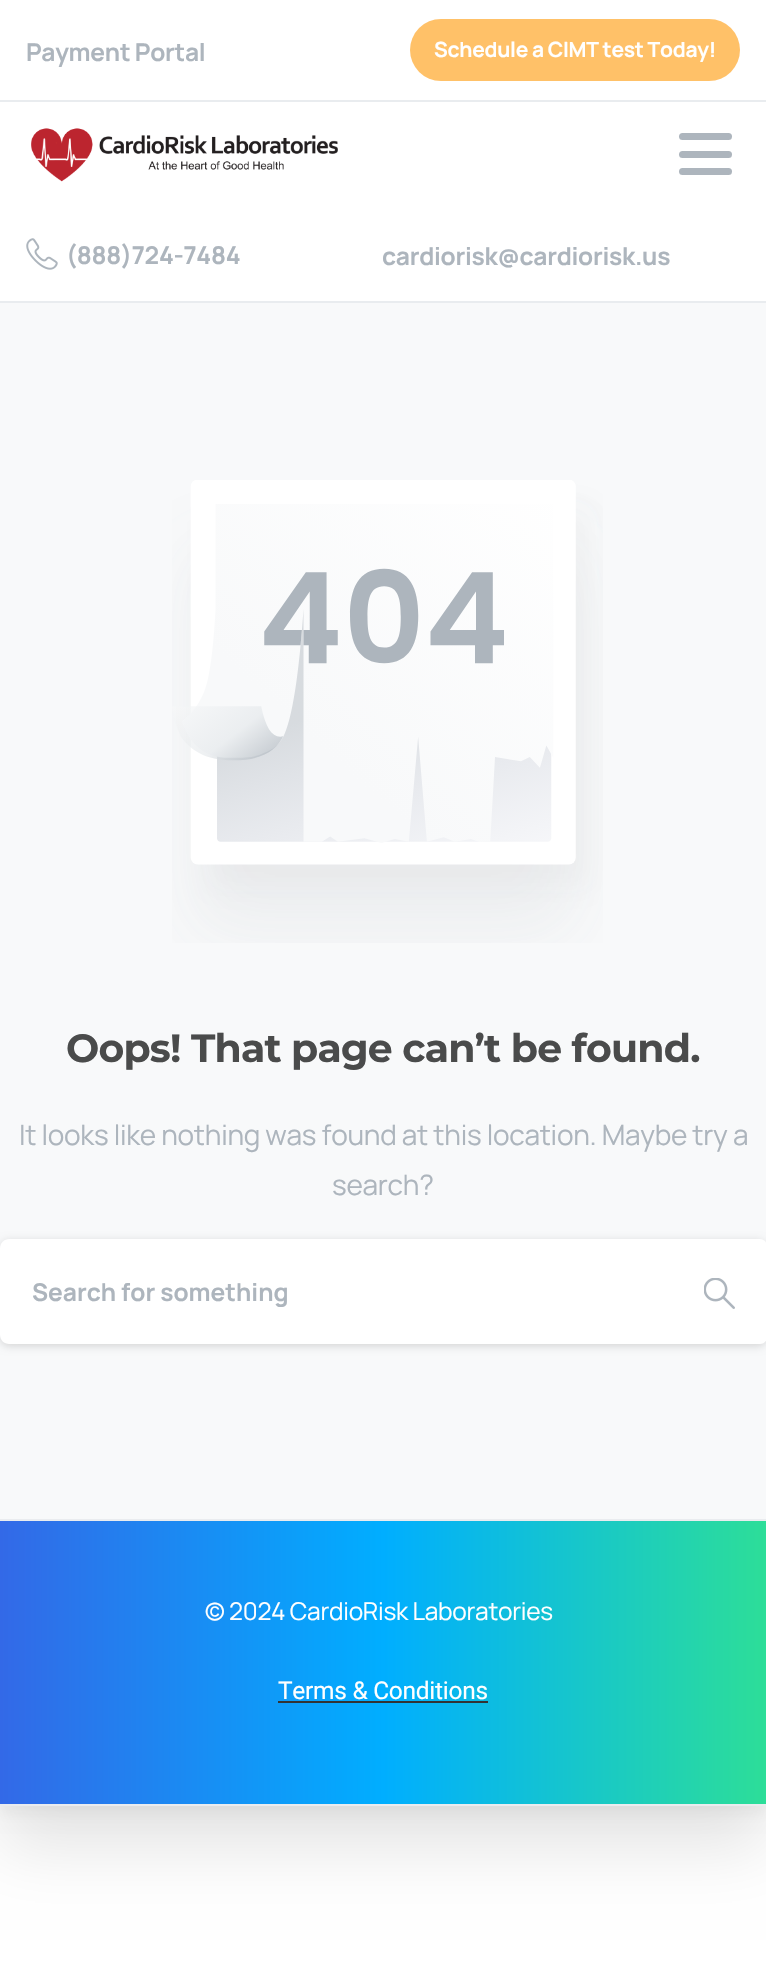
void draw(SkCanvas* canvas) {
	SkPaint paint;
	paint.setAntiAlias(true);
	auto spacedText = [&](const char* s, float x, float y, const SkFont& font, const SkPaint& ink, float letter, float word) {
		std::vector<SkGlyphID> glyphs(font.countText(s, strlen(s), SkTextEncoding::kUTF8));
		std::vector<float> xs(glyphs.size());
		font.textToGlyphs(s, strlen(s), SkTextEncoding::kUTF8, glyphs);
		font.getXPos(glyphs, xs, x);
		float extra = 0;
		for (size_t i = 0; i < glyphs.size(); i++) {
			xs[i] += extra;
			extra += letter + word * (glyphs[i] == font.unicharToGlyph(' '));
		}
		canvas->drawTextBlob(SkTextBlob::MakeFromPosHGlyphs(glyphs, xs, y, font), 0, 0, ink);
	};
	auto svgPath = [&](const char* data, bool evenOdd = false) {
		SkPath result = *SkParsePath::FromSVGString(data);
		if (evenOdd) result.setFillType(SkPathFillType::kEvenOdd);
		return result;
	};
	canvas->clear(0xffffffff);
	paint.setColor(0x1a000000);
	paint.setMaskFilter(SkMaskFilter::MakeBlur(kNormal_SkBlurStyle, 31));
	canvas->drawRect(SkRect::MakeXYWH(0, 42, 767, 1806), paint);
	paint.setMaskFilter(nullptr);
	paint.setColor(0x0d000000);
	paint.setMaskFilter(SkMaskFilter::MakeBlur(kNormal_SkBlurStyle, 7));
	canvas->drawRect(SkRect::MakeXYWH(0, 7, 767, 1806), paint);
	paint.setMaskFilter(nullptr);
	paint.setColor(0xffffffff);
	canvas->drawRect(SkRect::MakeXYWH(0, 0, 766, 301), paint);
	SkFont f1(fontMgr->matchFamilyStyle("Manrope", SkFontStyle::Bold()), 24.5);
	f1.setSubpixel(true);
	paint.setColor(0xffadb5bd);
	spacedText("Payment Portal", 26, 61, f1, paint, -0.28, 0);
	paint.setColor(0xffffc168);
	canvas->drawRoundRect(SkRect::MakeXYWH(410, 19, 330, 62), 31, 31, paint);
	SkFont f2(fontMgr->matchFamilyStyle("Manrope", SkFontStyle::Bold()), 21);
	f2.setSubpixel(true);
	paint.setColor(0xffffffff);
	spacedText("Schedule a CIMT test Today!", 434, 57, f2, paint, -0.28, 0);
	paint.setColor(0xffe9ecef);
	canvas->drawRect(SkRect::MakeXYWH(0, 100, 766, 2), paint);
	canvas->drawImageRect(SkImages::DeferredFromEncodedData(SkData::MakeFromFileName("img1.png")), SkRect::MakeXYWH(31, 128, 307, 54), SkSamplingOptions());
	paint.setColor(0xffadb5bd);
	canvas->drawRoundRect(SkRect::MakeXYWH(679, 151, 53, 7), 3.5, 3.5, paint);
	canvas->drawRoundRect(SkRect::MakeXYWH(679, 133, 53, 7), 3.5, 3.5, paint);
	canvas->drawRoundRect(SkRect::MakeXYWH(679, 168, 53, 7), 3.5, 3.5, paint);
	canvas->drawImageRect(SkImages::DeferredFromEncodedData(SkData::MakeFromFileName("img2.png")), SkRect::MakeXYWH(26, 238, 32, 32), SkSamplingOptions());
	spacedText("(888)724-7484", 66, 264, f1, paint, -0.28, 0);
	spacedText("cardiorisk@cardiorisk.us", 382, 265, f1, paint, -0.28, 0);
	paint.setColor(0xffe9ecef);
	canvas->drawRect(SkRect::MakeXYWH(0, 301, 766, 2), paint);
	paint.setColor(0xfff8f9fa);
	canvas->drawRect(SkRect::MakeXYWH(0, 303, 766, 1216), paint);
	canvas->drawImageRect(SkImages::DeferredFromEncodedData(SkData::MakeFromFileName("img3.png")), SkRect::MakeXYWH(172, 480, 431, 463), SkSamplingOptions());
	SkFont f3(fontMgr->matchFamilyStyle("Montserrat", SkFontStyle::Bold()), 39.4);
	f3.setSubpixel(true);
	paint.setColor(0xff4a4b4b);
	spacedText("Oops! That page can’t be found.", 66, 1062, f3, paint, -0.8, 0);
	SkFont f4(fontMgr->matchFamilyStyle("Manrope", SkFontStyle::Normal()), 28);
	f4.setSubpixel(true);
	paint.setColor(0xffadb5bd);
	spacedText("It looks like nothing was found at this location. Maybe try a", 19, 1145, f4, paint, -0.28, 0);
	spacedText("search?", 332, 1195, f4, paint, -0.28, 0);
	paint.setColor(0x26000000);
	paint.setMaskFilter(SkMaskFilter::MakeBlur(kNormal_SkBlurStyle, 4.5));
	canvas->drawRoundRect(SkRect::MakeXYWH(0, 1241, 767, 105), 9, 9, paint);
	paint.setMaskFilter(nullptr);
	paint.setColor(0xffffffff);
	canvas->drawPath(svgPath("M9 1239H672V1344H9C4 1344 0 1340 0 1335V1248C0 1243 4 1239 9 1239Z"), paint);
	canvas->save();
	canvas->clipRect(SkRect::MakeXYWH(32, 1274, 609, 33));
	paint.setColor(0xffadb5bd);
	canvas->drawString("Search for something", 32, 1301, f1, paint);
	canvas->restore();
	paint.setColor(0xffffffff);
	canvas->drawPath(svgPath("M672 1239H760C764 1239 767 1242 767 1246V1337C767 1341 764 1344 760 1344H672Z"), paint);
	canvas->drawImageRect(SkImages::DeferredFromEncodedData(SkData::MakeFromFileName("img4.png")), SkRect::MakeXYWH(704, 1278, 31, 31), SkSamplingOptions());
	{
		const SkColor colors[] = {0xff3369e7, 0xff00aeff, 0xff2dde98};
		const float stops[] = {0, 0.5, 1};
		const SkPoint ends[] = {{0, 991}, {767, 991}};
		paint.setShader(SkGradientShader::MakeLinear(ends, colors, stops, 3, SkTileMode::kClamp));
		paint.setAlpha(255);
	}
	canvas->drawRect(SkRect::MakeXYWH(0, 1521, 766, 283), paint);
	paint.setShader(nullptr);
	paint.setColor(0xffeaecef);
	canvas->drawRect(SkRect::MakeXYWH(0, 1519, 766, 2), paint);
	canvas->drawRect(SkRect::MakeXYWH(0, 1804, 766, 2), paint);
	SkFont f5(fontMgr->matchFamilyStyle("Manrope", SkFontStyle::Normal()), 24.5);
	f5.setSubpixel(true);
	paint.setColor(0xffffffff);
	spacedText("© 2024 CardioRisk Laboratories", 205, 1620, f5, paint, -0.28, 0);
	SkFont f6(fontMgr->matchFamilyStyle("Roboto", SkFontStyle::Normal()), 24.5);
	f6.setSubpixel(true);
	spacedText("Terms & Conditions", 278, 1699, f6, paint, -0.28, 0);
	paint.setColor(0xff333333);
	canvas->drawRect(SkRect::MakeXYWH(278, 1701, 210, 2), paint);
}
